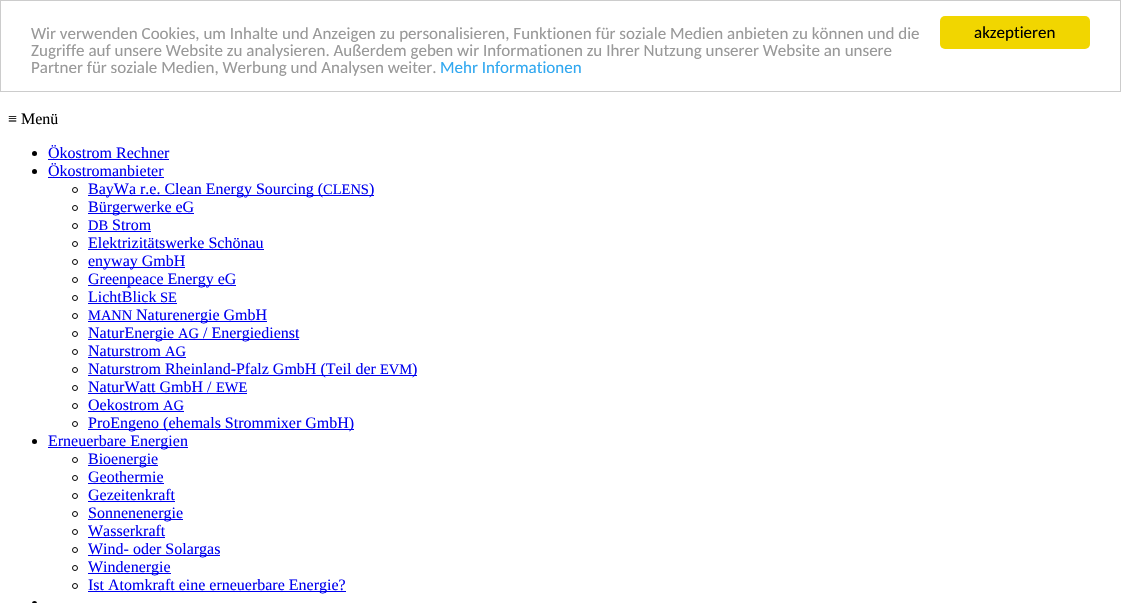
void draw(SkCanvas* canvas) {
	SkPaint paint;
	paint.setAntiAlias(true);
	canvas->clear(0xffffffff);
	paint.setStroke(true);
	paint.setStrokeWidth(1);
	paint.setColor(0xffcccccc);
	canvas->drawRect(SkRect::MakeXYWH(0.5, 0.5, 1120, 91), paint);
	SkFont f1(fontMgr->matchFamilyStyle("Carlito", SkFontStyle::Normal()), 17);
	f1.setSubpixel(true);
	paint.setStroke(false);
	paint.setColor(0xff999999);
	canvas->drawString("Wir verwenden Cookies, um Inhalte und Anzeigen zu personalisieren, Funktionen für soziale Medien anbieten zu können und die", 31, 39, f1, paint);
	canvas->drawString("Zugriffe auf unsere Website zu analysieren. Außerdem geben wir Informationen zu Ihrer Nutzung unserer Website an unsere", 31, 56, f1, paint);
	canvas->drawString("Partner für soziale Medien, Werbung und Analysen weiter.", 31, 73, f1, paint);
	paint.setColor(0xff31a8f0);
	canvas->drawString("Mehr Informationen", 440, 73, f1, paint);
	paint.setColor(0xfff1d600);
	canvas->drawRoundRect(SkRect::MakeXYWH(940, 16, 150, 33), 5, 5, paint);
	paint.setColor(0xff000000);
	canvas->drawString("akzeptieren", 974, 38, f1, paint);
	SkFont f2(fontMgr->matchFamilyStyle("Liberation Serif", SkFontStyle::Normal()), 16);
	f2.setSubpixel(true);
	canvas->drawString("≡ Menü", 8, 124, f2, paint);
	canvas->drawCircle(34.5, 153.5, 2.5, paint);
	paint.setColor(0xff0000ee);
	canvas->drawString("Ökostrom Rechner", 48, 158, f2, paint);
	canvas->drawRect(SkRect::MakeXYWH(48, 159, 121, 1), paint);
	paint.setColor(0xff000000);
	canvas->drawCircle(34.5, 171.5, 2.5, paint);
	paint.setColor(0xff0000ee);
	canvas->drawString("Ökostromanbieter", 48, 176, f2, paint);
	canvas->drawRect(SkRect::MakeXYWH(48, 177, 116, 1), paint);
	paint.setStroke(true);
	paint.setColor(0xff000000);
	canvas->drawCircle(75, 190, 2.5, paint);
	paint.setStroke(false);
	paint.setColor(0xff0000ee);
	canvas->drawRect(SkRect::MakeXYWH(88, 195, 286, 1), paint);
	canvas->drawString("BayWa r.e. Clean Energy Sourcing (", 88, 194, f2, paint);
	SkFont f3(fontMgr->matchFamilyStyle("Liberation Serif", SkFontStyle::Normal()), 14.5);
	f3.setSubpixel(true);
	canvas->drawString("CLENS", 323, 194, f3, paint);
	canvas->drawString(")", 369, 194, f2, paint);
	paint.setStroke(true);
	paint.setColor(0xff000000);
	canvas->drawCircle(75, 208, 2.5, paint);
	paint.setStroke(false);
	paint.setColor(0xff0000ee);
	canvas->drawRect(SkRect::MakeXYWH(88, 213, 106, 1), paint);
	canvas->drawString("Bürgerwerke eG", 88, 212, f2, paint);
	paint.setStroke(true);
	paint.setColor(0xff000000);
	canvas->drawCircle(75, 226, 2.5, paint);
	paint.setStroke(false);
	paint.setColor(0xff0000ee);
	canvas->drawString("DB", 88, 230, f3, paint);
	canvas->drawRect(SkRect::MakeXYWH(88, 231, 63, 1), paint);
	canvas->drawString("Strom", 112, 230, f2, paint);
	paint.setStroke(true);
	paint.setColor(0xff000000);
	canvas->drawCircle(75, 244, 2.5, paint);
	paint.setStroke(false);
	paint.setColor(0xff0000ee);
	canvas->drawString("Elektrizitätswerke Schönau", 88, 248, f2, paint);
	canvas->drawRect(SkRect::MakeXYWH(88, 249, 176, 1), paint);
	paint.setStroke(true);
	paint.setColor(0xff000000);
	canvas->drawCircle(75, 262, 2.5, paint);
	paint.setStroke(false);
	paint.setColor(0xff0000ee);
	canvas->drawRect(SkRect::MakeXYWH(88, 267, 97, 1), paint);
	canvas->drawString("enyway GmbH", 88, 266, f2, paint);
	paint.setStroke(true);
	paint.setColor(0xff000000);
	canvas->drawCircle(75, 280, 2.5, paint);
	paint.setStroke(false);
	paint.setColor(0xff0000ee);
	canvas->drawRect(SkRect::MakeXYWH(88, 285, 148, 1), paint);
	canvas->drawString("Greenpeace Energy eG", 88, 284, f2, paint);
	paint.setStroke(true);
	paint.setColor(0xff000000);
	canvas->drawCircle(75, 298, 2.5, paint);
	paint.setStroke(false);
	paint.setColor(0xff0000ee);
	canvas->drawString("LichtBlick", 88, 302, f2, paint);
	canvas->drawString("SE", 160, 302, f3, paint);
	canvas->drawRect(SkRect::MakeXYWH(88, 303, 89, 1), paint);
	paint.setStroke(true);
	paint.setColor(0xff000000);
	canvas->drawCircle(75, 316, 2.5, paint);
	paint.setStroke(false);
	paint.setColor(0xff0000ee);
	canvas->drawString("MANN", 88, 320, f3, paint);
	canvas->drawRect(SkRect::MakeXYWH(88, 321, 179, 1), paint);
	canvas->drawString("Naturenergie GmbH", 136, 320, f2, paint);
	paint.setStroke(true);
	paint.setColor(0xff000000);
	canvas->drawCircle(75, 334, 2.5, paint);
	paint.setStroke(false);
	paint.setColor(0xff0000ee);
	canvas->drawRect(SkRect::MakeXYWH(88, 339, 211, 1), paint);
	canvas->drawString("NaturEnergie", 88, 338, f2, paint);
	canvas->drawString("AG", 178, 338, f3, paint);
	canvas->drawString("/ Energiedienst", 203, 338, f2, paint);
	paint.setStroke(true);
	paint.setColor(0xff000000);
	canvas->drawCircle(75, 352, 2.5, paint);
	paint.setStroke(false);
	paint.setColor(0xff0000ee);
	canvas->drawString("Naturstrom", 88, 356, f2, paint);
	canvas->drawString("AG", 165, 356, f3, paint);
	canvas->drawRect(SkRect::MakeXYWH(88, 357, 98, 1), paint);
	paint.setStroke(true);
	paint.setColor(0xff000000);
	canvas->drawCircle(75, 370, 2.5, paint);
	paint.setStroke(false);
	paint.setColor(0xff0000ee);
	canvas->drawRect(SkRect::MakeXYWH(88, 375, 329, 1), paint);
	canvas->drawString("Naturstrom Rheinland-Pfalz GmbH (Teil der", 88, 374, f2, paint);
	canvas->drawString("EVM", 380, 374, f3, paint);
	canvas->drawString(")", 412, 374, f2, paint);
	paint.setStroke(true);
	paint.setColor(0xff000000);
	canvas->drawCircle(75, 388, 2.5, paint);
	paint.setStroke(false);
	paint.setColor(0xff0000ee);
	canvas->drawString("NaturWatt GmbH /", 88, 392, f2, paint);
	canvas->drawString("EWE", 216, 392, f3, paint);
	canvas->drawRect(SkRect::MakeXYWH(88, 393, 159, 1), paint);
	paint.setStroke(true);
	paint.setColor(0xff000000);
	canvas->drawCircle(75, 406, 2.5, paint);
	paint.setStroke(false);
	paint.setColor(0xff0000ee);
	canvas->drawString("Oekostrom", 88, 410, f2, paint);
	canvas->drawString("AG", 163, 410, f3, paint);
	canvas->drawRect(SkRect::MakeXYWH(88, 411, 96, 1), paint);
	paint.setStroke(true);
	paint.setColor(0xff000000);
	canvas->drawCircle(75, 424, 2.5, paint);
	paint.setStroke(false);
	paint.setColor(0xff0000ee);
	canvas->drawRect(SkRect::MakeXYWH(88, 429, 266, 1), paint);
	canvas->drawString("ProEngeno (ehemals Strommixer GmbH)", 88, 428, f2, paint);
	paint.setColor(0xff000000);
	canvas->drawCircle(34.5, 441.5, 2.5, paint);
	paint.setColor(0xff0000ee);
	canvas->drawRect(SkRect::MakeXYWH(48, 447, 140, 1), paint);
	canvas->drawString("Erneuerbare Energien", 48, 446, f2, paint);
	paint.setStroke(true);
	paint.setColor(0xff000000);
	canvas->drawCircle(75, 460, 2.5, paint);
	paint.setStroke(false);
	paint.setColor(0xff0000ee);
	canvas->drawRect(SkRect::MakeXYWH(88, 465, 70, 1), paint);
	canvas->drawString("Bioenergie", 88, 464, f2, paint);
	paint.setStroke(true);
	paint.setColor(0xff000000);
	canvas->drawCircle(75, 478, 2.5, paint);
	paint.setStroke(false);
	paint.setColor(0xff0000ee);
	canvas->drawString("Geothermie", 88, 482, f2, paint);
	canvas->drawRect(SkRect::MakeXYWH(88, 483, 76, 1), paint);
	paint.setStroke(true);
	paint.setColor(0xff000000);
	canvas->drawCircle(75, 496, 2.5, paint);
	paint.setStroke(false);
	paint.setColor(0xff0000ee);
	canvas->drawString("Gezeitenkraft", 88, 500, f2, paint);
	canvas->drawRect(SkRect::MakeXYWH(88, 501, 87, 1), paint);
	paint.setStroke(true);
	paint.setColor(0xff000000);
	canvas->drawCircle(75, 514, 2.5, paint);
	paint.setStroke(false);
	paint.setColor(0xff0000ee);
	canvas->drawRect(SkRect::MakeXYWH(88, 519, 95, 1), paint);
	canvas->drawString("Sonnenenergie", 88, 518, f2, paint);
	paint.setStroke(true);
	paint.setColor(0xff000000);
	canvas->drawCircle(75, 532, 2.5, paint);
	paint.setStroke(false);
	paint.setColor(0xff0000ee);
	canvas->drawString("Wasserkraft", 88, 536, f2, paint);
	canvas->drawRect(SkRect::MakeXYWH(88, 537, 77, 1), paint);
	paint.setStroke(true);
	paint.setColor(0xff000000);
	canvas->drawCircle(75, 550, 2.5, paint);
	paint.setStroke(false);
	paint.setColor(0xff0000ee);
	canvas->drawRect(SkRect::MakeXYWH(88, 555, 132, 1), paint);
	canvas->drawString("Wind- oder Solargas", 88, 554, f2, paint);
	paint.setStroke(true);
	paint.setColor(0xff000000);
	canvas->drawCircle(75, 568, 2.5, paint);
	paint.setStroke(false);
	paint.setColor(0xff0000ee);
	canvas->drawRect(SkRect::MakeXYWH(88, 573, 83, 1), paint);
	canvas->drawString("Windenergie", 88, 572, f2, paint);
	paint.setStroke(true);
	paint.setColor(0xff000000);
	canvas->drawCircle(75, 586, 2.5, paint);
	paint.setStroke(false);
	paint.setColor(0xff0000ee);
	canvas->drawRect(SkRect::MakeXYWH(88, 591, 258, 1), paint);
	canvas->drawString("Ist Atomkraft eine erneuerbare Energie?", 88, 590, f2, paint);
	paint.setColor(0xff000000);
	canvas->drawCircle(34.5, 603.5, 2.5, paint);
}
